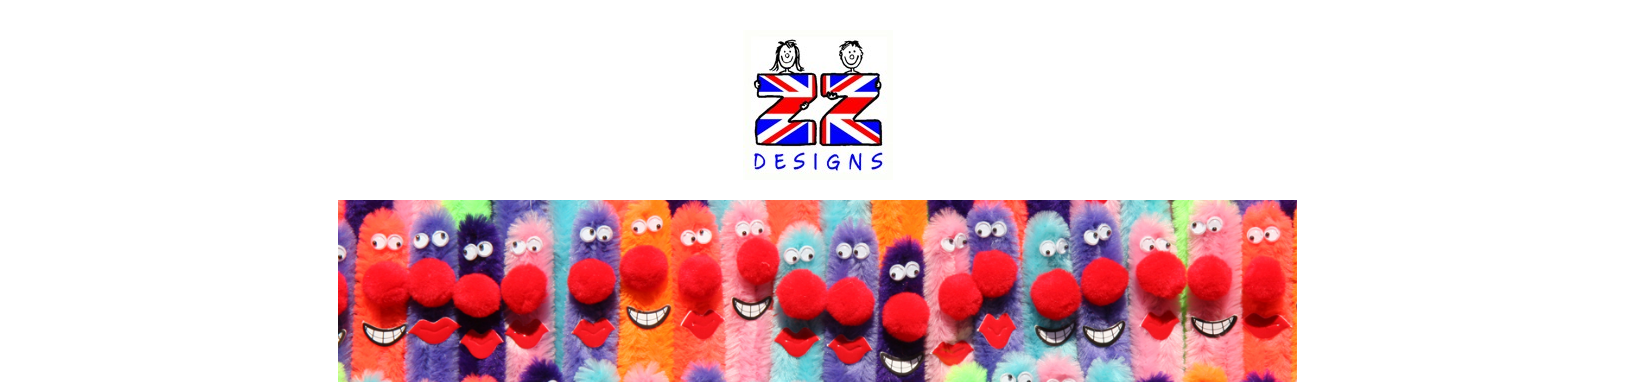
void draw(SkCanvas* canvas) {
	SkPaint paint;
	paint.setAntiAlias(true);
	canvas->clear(0xffffffff);
	canvas->drawImageRect(SkImages::DeferredFromEncodedData(SkData::MakeFromFileName("img1.png")), SkRect::MakeXYWH(743, 30, 150, 150), SkSamplingOptions());
	canvas->drawImageRect(SkImages::DeferredFromEncodedData(SkData::MakeFromFileName("img2.png")), SkRect::MakeXYWH(338, 200, 959, 182), SkSamplingOptions());
}
